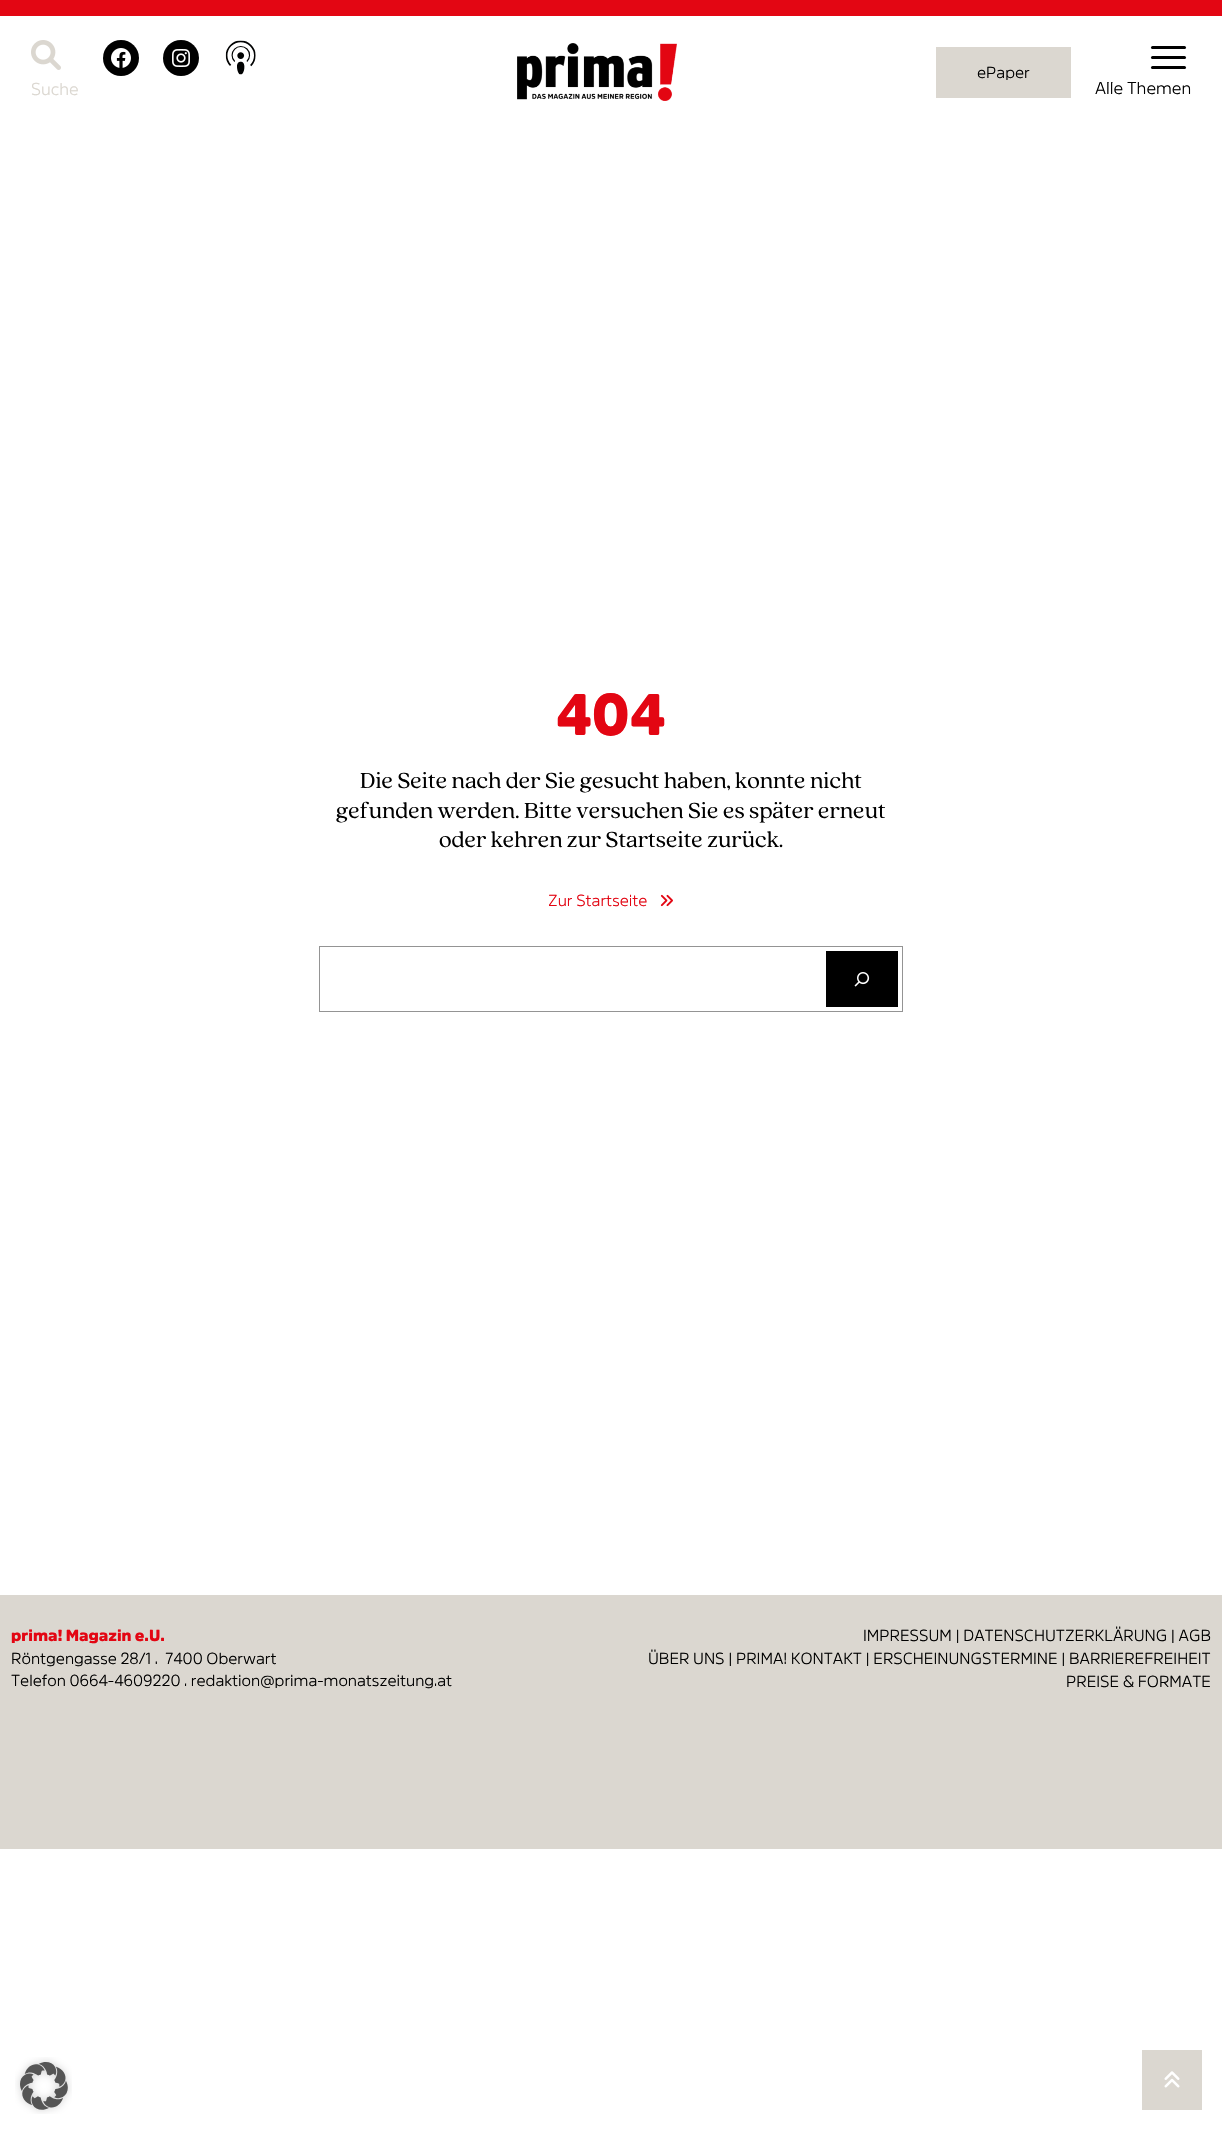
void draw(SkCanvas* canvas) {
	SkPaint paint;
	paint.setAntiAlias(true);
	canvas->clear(0xffffffff);
	paint.setColor(0xffe30613);
	canvas->drawRect(SkRect::MakeXYWH(0, 0, 1222, 16), paint);
	paint.setColor(0xff000000);
	canvas->drawCircle(121, 58, 18, paint);
	canvas->drawImageRect(SkImages::DeferredFromEncodedData(SkData::MakeFromFileName("img1.png")), SkRect::MakeXYWH(111, 48, 20, 20), SkSamplingOptions());
	canvas->drawCircle(181, 58, 18, paint);
	canvas->drawImageRect(SkImages::DeferredFromEncodedData(SkData::MakeFromFileName("img2.png")), SkRect::MakeXYWH(172, 49, 18, 18), SkSamplingOptions());
	canvas->drawImageRect(SkImages::DeferredFromEncodedData(SkData::MakeFromFileName("img3.png")), SkRect::MakeXYWH(225, 40, 31, 35), SkSamplingOptions());
	canvas->drawImageRect(SkImages::DeferredFromEncodedData(SkData::MakeFromFileName("img4.png")), SkRect::MakeXYWH(31, 40, 30, 30), SkSamplingOptions());
	SkFont f1(fontMgr->matchFamilyStyle("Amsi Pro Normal", SkFontStyle(300, SkFontStyle::kNormal_Width, SkFontStyle::kUpright_Slant)), 17);
	f1.setSubpixel(true);
	paint.setColor(0xffdbd7d0);
	canvas->drawString("Suche", 31, 95, f1, paint);
	canvas->drawImageRect(SkImages::DeferredFromEncodedData(SkData::MakeFromFileName("img5.png")), SkRect::MakeXYWH(517, 43, 160, 58), SkSamplingOptions());
	canvas->drawRect(SkRect::MakeXYWH(936, 47, 135, 51), paint);
	SkFont f2(fontMgr->matchFamilyStyle("Amsi Pro Normal", SkFontStyle(300, SkFontStyle::kNormal_Width, SkFontStyle::kUpright_Slant)), 16);
	f2.setSubpixel(true);
	paint.setColor(0xff000000);
	canvas->drawString("ePaper", 977, 78, f2, paint);
	canvas->drawRoundRect(SkRect::MakeXYWH(1151, 46, 35, 3), 1.5, 1.5, paint);
	canvas->drawRoundRect(SkRect::MakeXYWH(1151, 56, 35, 3), 1.5, 1.5, paint);
	canvas->drawRoundRect(SkRect::MakeXYWH(1151, 66, 35, 3), 1.5, 1.5, paint);
	canvas->drawString("Alle Themen", 1095, 94, f1, paint);
	SkFont f3(fontMgr->matchFamilyStyle("Amsi Pro Normal", SkFontStyle(900, SkFontStyle::kNormal_Width, SkFontStyle::kUpright_Slant)), 58);
	f3.setSubpixel(true);
	paint.setColor(0xffe30613);
	canvas->drawString("404", 556, 735, f3, paint);
	SkFont f4(fontMgr->matchFamilyStyle("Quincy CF", SkFontStyle::Normal()), 24);
	f4.setSubpixel(true);
	paint.setColor(0xff000000);
	canvas->drawString("Die Seite nach der Sie gesucht haben, konnte nicht", 360, 788, f4, paint);
	canvas->drawString("gefunden werden. Bitte versuchen Sie es später erneut", 336, 818, f4, paint);
	canvas->drawString("oder kehren zur Startseite zurück.", 439, 847, f4, paint);
	paint.setColor(0xffe30613);
	canvas->drawString("Zur Startseite", 548, 906, f2, paint);
	canvas->drawImageRect(SkImages::DeferredFromEncodedData(SkData::MakeFromFileName("img6.png")), SkRect::MakeXYWH(660, 894, 13, 13), SkSamplingOptions());
	paint.setStroke(true);
	paint.setStrokeWidth(1);
	paint.setColor(0xff949494);
	canvas->drawRect(SkRect::MakeXYWH(319.5, 946.5, 583, 65), paint);
	paint.setStroke(false);
	paint.setColor(0xff000000);
	canvas->drawRect(SkRect::MakeXYWH(826, 951, 72, 56), paint);
	canvas->drawImageRect(SkImages::DeferredFromEncodedData(SkData::MakeFromFileName("img7.png")), SkRect::MakeXYWH(854, 972, 16, 15), SkSamplingOptions());
	paint.setColor(0xffdbd7d0);
	canvas->drawRect(SkRect::MakeXYWH(0, 1595, 1222, 254), paint);
	SkFont f5(fontMgr->matchFamilyStyle("Amsi Pro Normal", SkFontStyle(900, SkFontStyle::kNormal_Width, SkFontStyle::kUpright_Slant)), 16);
	f5.setSubpixel(true);
	paint.setColor(0xffe30613);
	canvas->drawString("prima! Magazin e.U.", 11, 1641, f5, paint);
	paint.setColor(0xff000000);
	canvas->drawString("Röntgengasse 28/1 .  7400 Oberwart", 11, 1664, f2, paint);
	canvas->drawString("Telefon 0664-4609220 . redaktion@prima-monatszeitung.at", 11, 1686, f2, paint);
	canvas->drawString("IMPRESSUM | DATENSCHUTZERKLÄRUNG | AGB", 863, 1641, f2, paint);
	canvas->drawString("ÜBER UNS | PRIMA! KONTAKT | ERSCHEINUNGSTERMINE | BARRIEREFREIHEIT", 648, 1664, f2, paint);
	canvas->drawString("PREISE & FORMATE", 1066, 1687, f2, paint);
	paint.setColor(0xffdbd7d0);
	canvas->drawRect(SkRect::MakeXYWH(1142, 2050, 60, 60), paint);
	canvas->drawImageRect(SkImages::DeferredFromEncodedData(SkData::MakeFromFileName("img8.png")), SkRect::MakeXYWH(1164, 2071, 16, 17), SkSamplingOptions());
	canvas->drawImageRect(SkImages::DeferredFromEncodedData(SkData::MakeFromFileName("img9.png")), SkRect::MakeXYWH(15, 2057, 57, 57), SkSamplingOptions());
}
